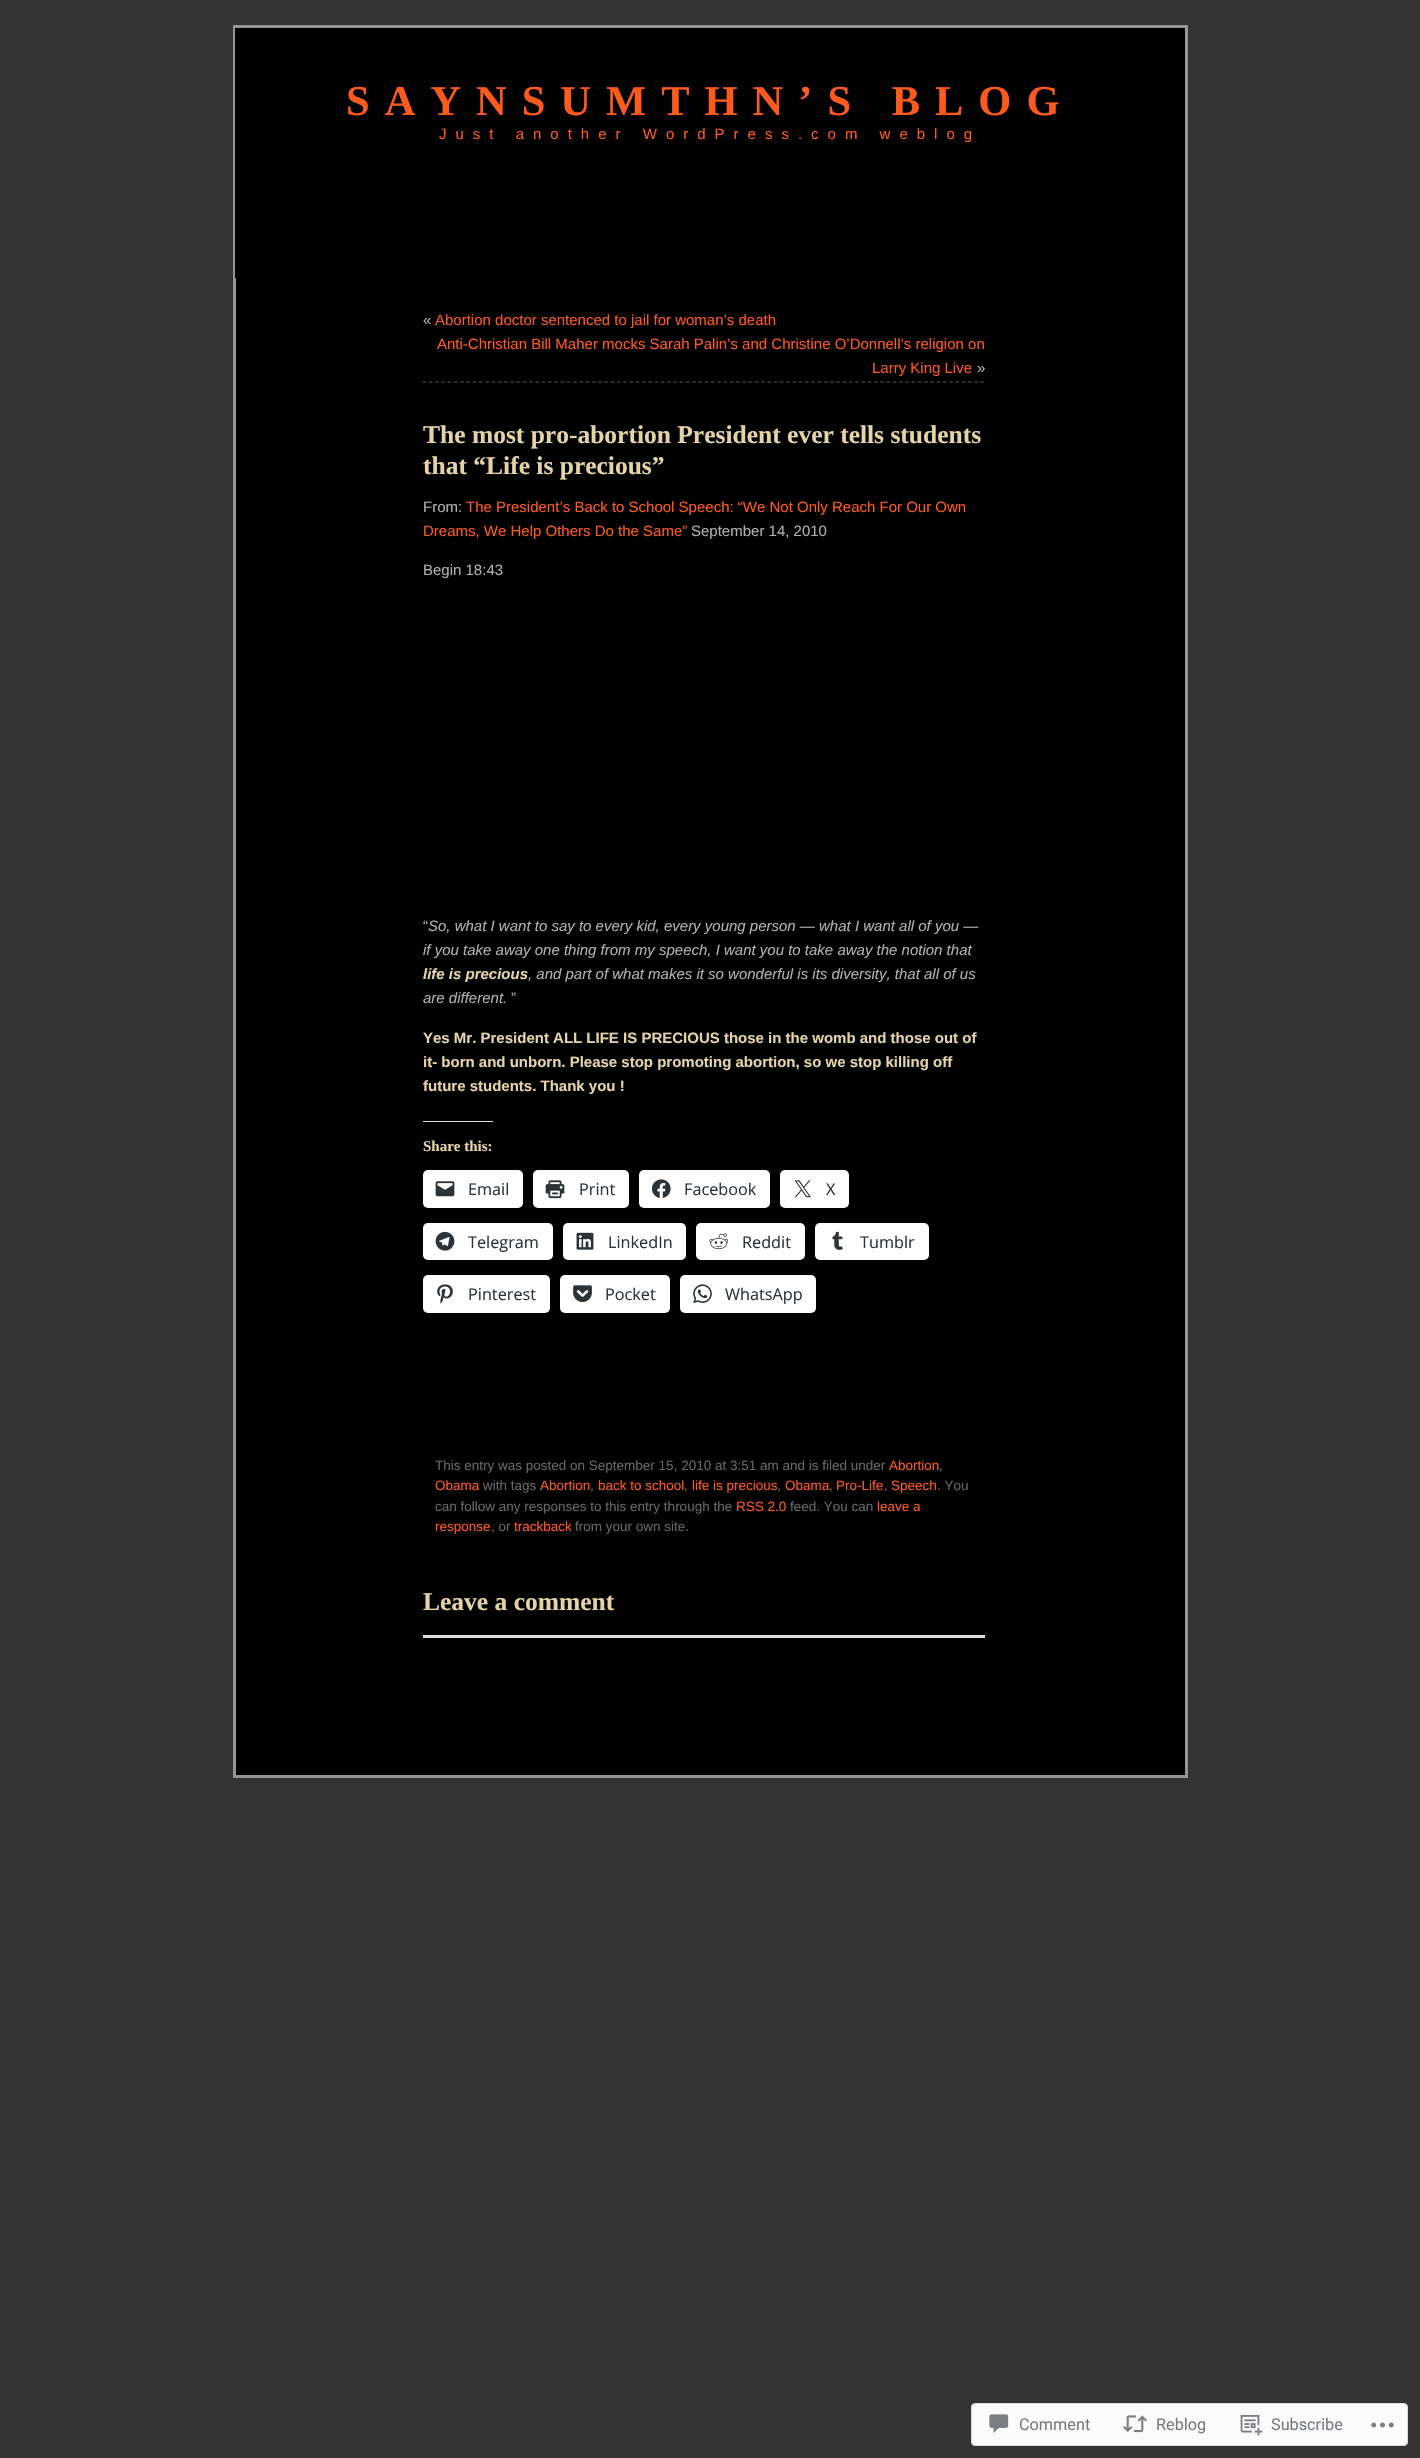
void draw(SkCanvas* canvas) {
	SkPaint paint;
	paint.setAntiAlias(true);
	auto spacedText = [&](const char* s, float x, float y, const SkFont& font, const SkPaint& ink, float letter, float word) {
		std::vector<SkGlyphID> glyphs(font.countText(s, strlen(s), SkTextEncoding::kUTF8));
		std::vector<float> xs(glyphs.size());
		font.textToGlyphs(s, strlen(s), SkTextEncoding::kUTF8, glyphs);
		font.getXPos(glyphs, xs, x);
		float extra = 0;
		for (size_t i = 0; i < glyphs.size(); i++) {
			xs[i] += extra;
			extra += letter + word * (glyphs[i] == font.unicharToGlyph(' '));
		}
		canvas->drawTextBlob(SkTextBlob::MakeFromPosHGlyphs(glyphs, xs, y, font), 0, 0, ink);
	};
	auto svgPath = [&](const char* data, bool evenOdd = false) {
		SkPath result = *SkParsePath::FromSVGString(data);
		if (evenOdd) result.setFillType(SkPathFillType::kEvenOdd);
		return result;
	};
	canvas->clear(0xff333333);
	paint.setColor(0xff000000);
	canvas->drawRect(SkRect::MakeXYWH(236, 278, 949, 1497), paint);
	paint.setStroke(true);
	paint.setStrokeWidth(3);
	paint.setColor(0xff959596);
	canvas->drawRect(SkRect::MakeXYWH(234.5, 26.5, 952, 1750), paint);
	paint.setStroke(false);
	paint.setColor(0xff000000);
	canvas->drawRect(SkRect::MakeXYWH(235, 28, 950, 250), paint);
	SkFont f1(fontMgr->matchFamilyStyle("Liberation Serif", SkFontStyle::Bold()), 42.5);
	f1.setSubpixel(true);
	paint.setColor(0xfffd5a1e);
	spacedText("SAYNSUMTHN’S BLOG", 346, 115, f1, paint, 15, 0);
	SkFont f2(fontMgr->matchFamilyStyle("Liberation Sans", SkFontStyle::Normal()), 15);
	f2.setSubpixel(true);
	spacedText("Just another WordPress.com weblog", 439, 139, f2, paint, 9, 0);
	paint.setColor(0xffb0b0b0);
	canvas->drawString("«", 423, 325, f2, paint);
	paint.setColor(0xfffd5a1e);
	canvas->drawString("Abortion doctor sentenced to jail for woman’s death", 435, 325, f2, paint);
	canvas->drawString("Anti-Christian Bill Maher mocks Sarah Palin’s and Christine O’Donnell’s religion on", 437, 349, f2, paint);
	canvas->drawString("Larry King Live", 872, 373, f2, paint);
	paint.setColor(0xffb0b0b0);
	canvas->drawString("»", 977, 373, f2, paint);
	paint.setStroke(true);
	paint.setStrokeWidth(1.2);
	paint.setColor(0xff555555);
	paint.setPathEffect(SkDashPathEffect::Make({{3.75f, 2.52f}}, 0));
	canvas->drawPath(svgPath("M422.5 382H985"), paint);
	paint.setPathEffect(nullptr);
	canvas->save();
	canvas->clipRect(SkRect::MakeXYWH(423, 284, 562, 1379));
	SkFont f3(fontMgr->matchFamilyStyle("Liberation Serif", SkFontStyle::Bold()), 25.5);
	f3.setSubpixel(true);
	paint.setStroke(false);
	paint.setColor(0xffe4d3a6);
	canvas->drawString("The most pro-abortion President ever tells students", 423, 443, f3, paint);
	canvas->restore();
	canvas->drawString("that “Life is precious”", 423, 474, f3, paint);
	paint.setColor(0xffb0b0b0);
	canvas->drawString("From:", 423, 512, f2, paint);
	paint.setColor(0xfffd5a1e);
	canvas->drawString("The President’s Back to School Speech: “We Not Only Reach For Our Own", 466, 512, f2, paint);
	canvas->drawString("Dreams, We Help Others Do the Same”", 423, 536, f2, paint);
	paint.setColor(0xffb0b0b0);
	canvas->drawString("September 14, 2010", 691, 536, f2, paint);
	canvas->drawString("Begin 18:43", 423, 575, f2, paint);
	canvas->drawString("“", 423, 931, f2, paint);
	SkFont f4(fontMgr->matchFamilyStyle("Liberation Sans", SkFontStyle::Italic()), 15);
	f4.setSubpixel(true);
	canvas->drawString("So, what I want to say to every kid, every young person — what I want all of you —", 428, 931, f4, paint);
	canvas->drawString("if you take away one thing from my speech, I want you to take away the notion that", 423, 955, f4, paint);
	SkFont f5(fontMgr->matchFamilyStyle("Liberation Sans", SkFontStyle::BoldItalic()), 15);
	f5.setSubpixel(true);
	paint.setColor(0xffe4d3a6);
	canvas->drawString("life is precious", 423, 979, f5, paint);
	paint.setColor(0xffb0b0b0);
	canvas->drawString(", and part of what makes it so wonderful is its diversity, that all of us", 528, 979, f4, paint);
	canvas->drawString("are different.", 423, 1003, f4, paint);
	canvas->drawString("”", 511, 1003, f2, paint);
	SkFont f6(fontMgr->matchFamilyStyle("Liberation Sans", SkFontStyle::Bold()), 15);
	f6.setSubpixel(true);
	paint.setColor(0xffe4d3a6);
	canvas->drawString("Yes Mr. President ALL LIFE IS PRECIOUS those in the womb and those out of", 423, 1043, f6, paint);
	canvas->drawString("it- born and unborn. Please stop promoting abortion, so we stop killing off", 423, 1067, f6, paint);
	canvas->drawString("future students. Thank you !", 423, 1091, f6, paint);
	paint.setColor(0xffdcdcde);
	canvas->drawRect(SkRect::MakeXYWH(423, 1121, 70, 1), paint);
	SkFont f7(fontMgr->matchFamilyStyle("Liberation Serif", SkFontStyle::Bold()), 15);
	f7.setSubpixel(true);
	paint.setColor(0xffe4d3a6);
	canvas->drawString("Share this:", 423, 1151, f7, paint);
	paint.setColor(0xffffffff);
	canvas->drawRoundRect(SkRect::MakeXYWH(423, 1170, 100, 38), 5, 5, paint);
	canvas->drawImageRect(SkImages::DeferredFromEncodedData(SkData::MakeFromFileName("img1.png")), SkRect::MakeXYWH(435, 1181, 20, 16), SkSamplingOptions());
	SkFont f8(fontMgr->matchFamilyStyle("Open Sans", SkFontStyle::Normal()), 16.25);
	f8.setSubpixel(true);
	paint.setColor(0xff2c3338);
	canvas->drawString("Email", 468, 1195, f8, paint);
	paint.setColor(0xffffffff);
	canvas->drawRoundRect(SkRect::MakeXYWH(533, 1170, 96, 38), 5, 5, paint);
	canvas->drawImageRect(SkImages::DeferredFromEncodedData(SkData::MakeFromFileName("img2.png")), SkRect::MakeXYWH(545, 1180, 20, 19), SkSamplingOptions());
	paint.setColor(0xff2c3338);
	canvas->drawString("Print", 579, 1195, f8, paint);
	paint.setColor(0xffffffff);
	canvas->drawRoundRect(SkRect::MakeXYWH(639, 1170, 131, 38), 5, 5, paint);
	canvas->drawImageRect(SkImages::DeferredFromEncodedData(SkData::MakeFromFileName("img3.png")), SkRect::MakeXYWH(651, 1179, 20, 19), SkSamplingOptions());
	paint.setColor(0xff2c3338);
	canvas->drawString("Facebook", 684, 1195, f8, paint);
	paint.setColor(0xffffffff);
	canvas->drawRoundRect(SkRect::MakeXYWH(780, 1170, 69, 38), 5, 5, paint);
	canvas->drawImageRect(SkImages::DeferredFromEncodedData(SkData::MakeFromFileName("img4.png")), SkRect::MakeXYWH(794, 1180, 17, 18), SkSamplingOptions());
	paint.setColor(0xff2c3338);
	canvas->drawString("X", 826, 1195, f8, paint);
	paint.setColor(0xffffffff);
	canvas->drawRoundRect(SkRect::MakeXYWH(423, 1223, 130, 37), 5, 5, paint);
	canvas->drawImageRect(SkImages::DeferredFromEncodedData(SkData::MakeFromFileName("img5.png")), SkRect::MakeXYWH(435, 1231, 20, 20), SkSamplingOptions());
	paint.setColor(0xff2c3338);
	canvas->drawString("Telegram", 468, 1248, f8, paint);
	paint.setColor(0xffffffff);
	canvas->drawRoundRect(SkRect::MakeXYWH(563, 1223, 123, 37), 5, 5, paint);
	canvas->drawImageRect(SkImages::DeferredFromEncodedData(SkData::MakeFromFileName("img6.png")), SkRect::MakeXYWH(576, 1232, 18, 18), SkSamplingOptions());
	paint.setColor(0xff2c3338);
	canvas->drawString("LinkedIn", 608, 1248, f8, paint);
	paint.setColor(0xffffffff);
	canvas->drawRoundRect(SkRect::MakeXYWH(696, 1223, 109, 37), 5, 5, paint);
	canvas->drawImageRect(SkImages::DeferredFromEncodedData(SkData::MakeFromFileName("img7.png")), SkRect::MakeXYWH(709, 1233, 20, 17), SkSamplingOptions());
	paint.setColor(0xff2c3338);
	canvas->drawString("Reddit", 742, 1248, f8, paint);
	paint.setColor(0xffffffff);
	canvas->drawRoundRect(SkRect::MakeXYWH(815, 1223, 114, 37), 5, 5, paint);
	canvas->drawImageRect(SkImages::DeferredFromEncodedData(SkData::MakeFromFileName("img8.png")), SkRect::MakeXYWH(832, 1231, 11, 19), SkSamplingOptions());
	paint.setColor(0xff2c3338);
	canvas->drawString("Tumblr", 860, 1248, f8, paint);
	paint.setColor(0xffffffff);
	canvas->drawRoundRect(SkRect::MakeXYWH(423, 1275, 127, 38), 5, 5, paint);
	canvas->drawImageRect(SkImages::DeferredFromEncodedData(SkData::MakeFromFileName("img9.png")), SkRect::MakeXYWH(437, 1284, 16, 20), SkSamplingOptions());
	paint.setColor(0xff2c3338);
	canvas->drawString("Pinterest", 468, 1300, f8, paint);
	paint.setColor(0xffffffff);
	canvas->drawRoundRect(SkRect::MakeXYWH(560, 1275, 110, 38), 5, 5, paint);
	canvas->drawImageRect(SkImages::DeferredFromEncodedData(SkData::MakeFromFileName("img10.png")), SkRect::MakeXYWH(573, 1285, 19, 17), SkSamplingOptions());
	paint.setColor(0xff2c3338);
	canvas->drawString("Pocket", 605, 1300, f8, paint);
	paint.setColor(0xffffffff);
	canvas->drawRoundRect(SkRect::MakeXYWH(680, 1275, 136, 38), 5, 5, paint);
	canvas->drawImageRect(SkImages::DeferredFromEncodedData(SkData::MakeFromFileName("img11.png")), SkRect::MakeXYWH(693, 1284, 19, 19), SkSamplingOptions());
	paint.setColor(0xff2c3338);
	canvas->drawString("WhatsApp", 725, 1300, f8, paint);
	SkFont f9(fontMgr->matchFamilyStyle("Liberation Sans", SkFontStyle::Normal()), 13.5);
	f9.setSubpixel(true);
	paint.setColor(0xff666666);
	canvas->drawString("This entry was posted on September 15, 2010 at 3:51 am and is filed under", 435, 1470, f9, paint);
	paint.setColor(0xfffd5a1e);
	canvas->drawString("Abortion", 889, 1470, f9, paint);
	paint.setColor(0xff666666);
	canvas->drawString(",", 939, 1470, f9, paint);
	paint.setColor(0xfffd5a1e);
	canvas->drawString("Obama", 435, 1490, f9, paint);
	paint.setColor(0xff666666);
	canvas->drawString("with tags", 483, 1490, f9, paint);
	paint.setColor(0xfffd5a1e);
	canvas->drawString("Abortion", 540, 1490, f9, paint);
	paint.setColor(0xff666666);
	canvas->drawString(",", 590, 1490, f9, paint);
	paint.setColor(0xfffd5a1e);
	canvas->drawString("back to school", 598, 1490, f9, paint);
	paint.setColor(0xff666666);
	canvas->drawString(",", 684, 1490, f9, paint);
	paint.setColor(0xfffd5a1e);
	canvas->drawString("life is precious", 692, 1490, f9, paint);
	paint.setColor(0xff666666);
	canvas->drawString(",", 777, 1490, f9, paint);
	paint.setColor(0xfffd5a1e);
	canvas->drawString("Obama", 785, 1490, f9, paint);
	paint.setColor(0xff666666);
	canvas->drawString(",", 829, 1490, f9, paint);
	paint.setColor(0xfffd5a1e);
	canvas->drawString("Pro-Life", 836, 1490, f9, paint);
	paint.setColor(0xff666666);
	canvas->drawString(",", 884, 1490, f9, paint);
	paint.setColor(0xfffd5a1e);
	canvas->drawString("Speech", 891, 1490, f9, paint);
	paint.setColor(0xff666666);
	canvas->drawString(". You", 937, 1490, f9, paint);
	canvas->drawString("can follow any responses to this entry through the", 435, 1511, f9, paint);
	paint.setColor(0xfffd5a1e);
	canvas->drawString("RSS 2.0", 736, 1511, f9, paint);
	paint.setColor(0xff666666);
	canvas->drawString("feed. You can", 790, 1511, f9, paint);
	paint.setColor(0xfffd5a1e);
	canvas->drawString("leave a", 877, 1511, f9, paint);
	canvas->drawString("response", 435, 1531, f9, paint);
	paint.setColor(0xff666666);
	canvas->drawString(", or", 491, 1531, f9, paint);
	paint.setColor(0xfffd5a1e);
	canvas->drawString("trackback", 514, 1531, f9, paint);
	paint.setColor(0xff666666);
	canvas->drawString("from your own site.", 575, 1531, f9, paint);
	paint.setColor(0xffe4d3a6);
	canvas->drawString("Leave a comment", 423, 1610, f3, paint);
	paint.setColor(0xffdcdcde);
	canvas->drawRect(SkRect::MakeXYWH(423, 1635, 562, 3), paint);
	paint.setColor(0xfffbfbfb);
	canvas->drawRoundRect(SkRect::MakeXYWH(971.5, 2403.5, 436, 42), 3.5, 3.5, paint);
	paint.setStroke(true);
	paint.setStrokeWidth(1);
	paint.setColor(0xffd9d9db);
	canvas->drawRoundRect(SkRect::MakeXYWH(971.5, 2403.5, 436, 42), 3.5, 3.5, paint);
	canvas->drawImageRect(SkImages::DeferredFromEncodedData(SkData::MakeFromFileName("img12.png")), SkRect::MakeXYWH(989, 2414, 20, 19), SkSamplingOptions());
	SkFont f10(fontMgr->matchFamilyStyle("Roboto", SkFontStyle::Normal()), 16.25);
	f10.setSubpixel(true);
	paint.setStroke(false);
	paint.setColor(0xff777b80);
	canvas->drawString("Comment", 1019, 2430, f10, paint);
	canvas->drawImageRect(SkImages::DeferredFromEncodedData(SkData::MakeFromFileName("img13.png")), SkRect::MakeXYWH(1123, 2415, 24, 18), SkSamplingOptions());
	canvas->drawString("Reblog", 1156, 2430, f10, paint);
	canvas->drawImageRect(SkImages::DeferredFromEncodedData(SkData::MakeFromFileName("img14.png")), SkRect::MakeXYWH(1240, 2415, 23, 21), SkSamplingOptions());
	canvas->drawString("Subscribe", 1271, 2430, f10, paint);
	canvas->drawImageRect(SkImages::DeferredFromEncodedData(SkData::MakeFromFileName("img15.png")), SkRect::MakeXYWH(1371, 2422, 23, 6), SkSamplingOptions());
}
